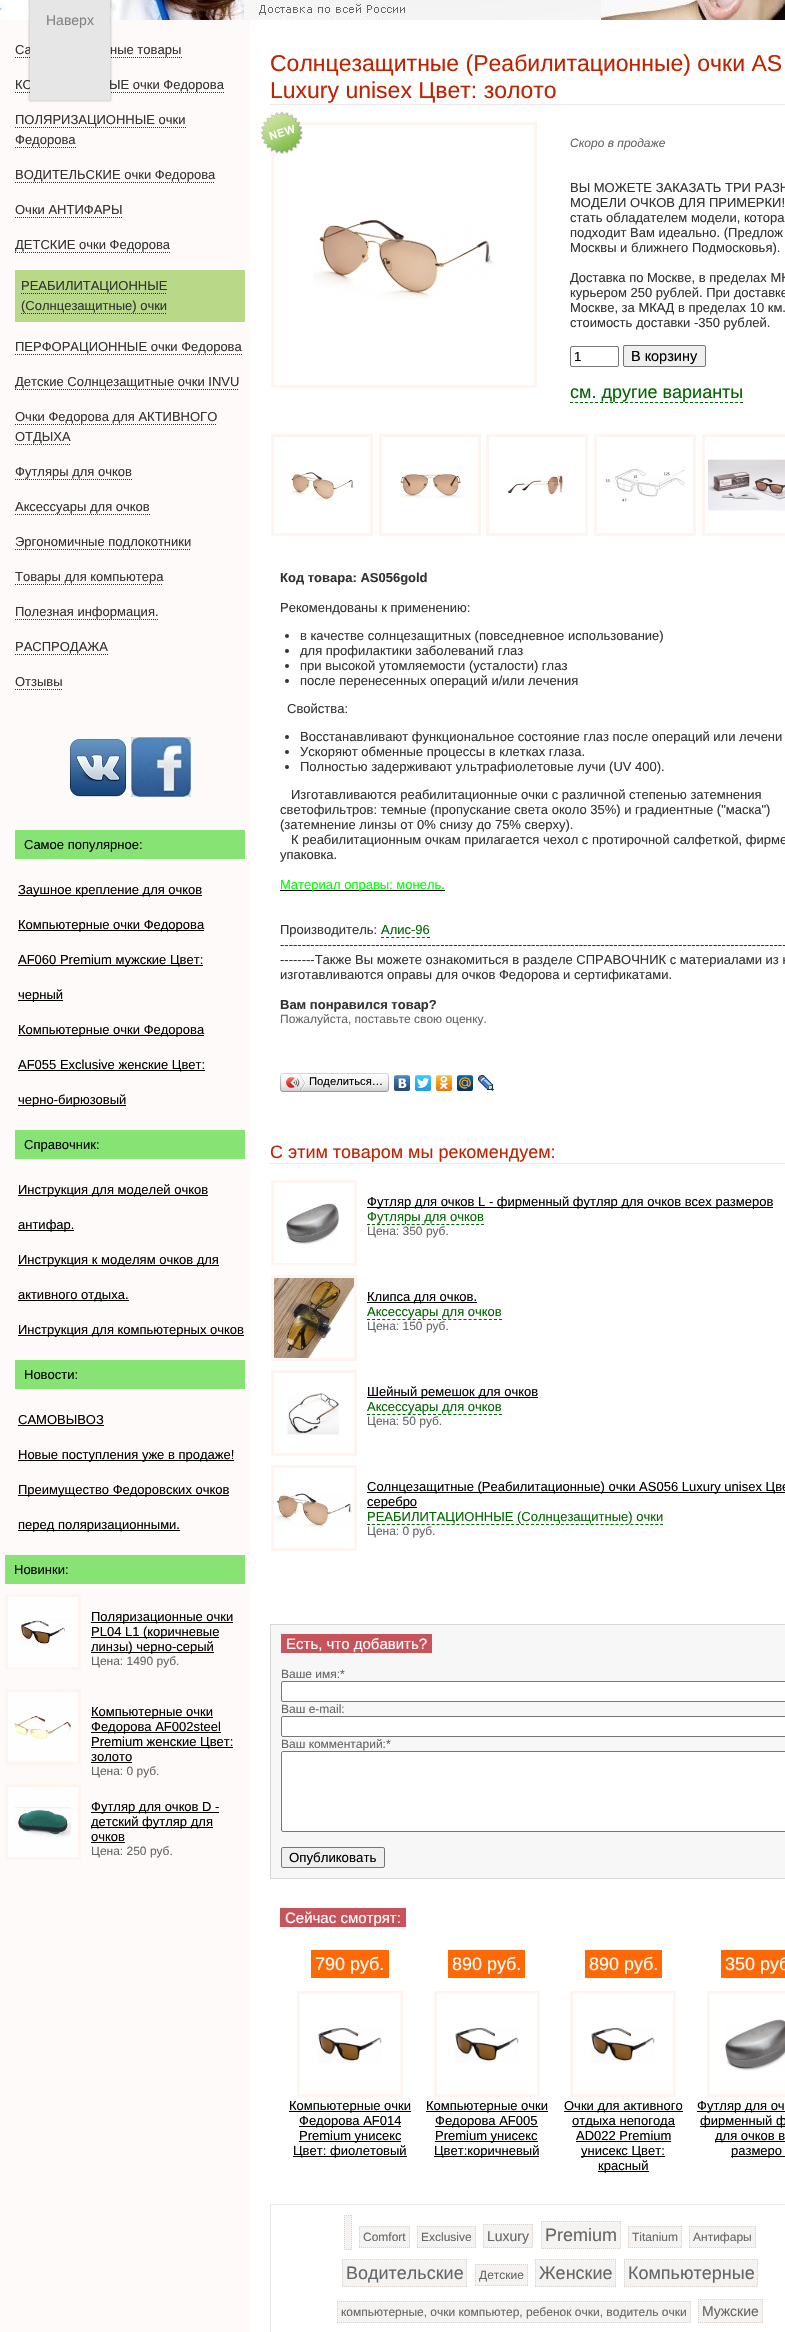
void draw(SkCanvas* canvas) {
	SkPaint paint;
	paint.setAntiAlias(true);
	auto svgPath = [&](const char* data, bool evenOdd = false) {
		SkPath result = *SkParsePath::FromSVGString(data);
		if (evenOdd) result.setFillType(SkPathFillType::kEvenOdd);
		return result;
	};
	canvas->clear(0xffffffff);
	canvas->drawImageRect(SkImages::DeferredFromEncodedData(SkData::MakeFromFileName("img1.png")), SkRect::MakeXYWH(0, 0, 785, 20), SkSamplingOptions());
	paint.setColor(0xfffffafa);
	canvas->drawRect(SkRect::MakeXYWH(0, 20, 250, 2312), paint);
	paint.setStroke(true);
	paint.setStrokeWidth(1);
	paint.setColor(0xff333333);
	paint.setPathEffect(SkDashPathEffect::Make({{1, 1}}, 0));
	canvas->drawPath(svgPath("M15 57.5H182"), paint);
	paint.setPathEffect(nullptr);
	paint.setPathEffect(SkDashPathEffect::Make({{1, 1}}, 0));
	canvas->drawPath(svgPath("M15 92.5H224"), paint);
	paint.setPathEffect(nullptr);
	paint.setStroke(false);
	paint.setColor(0x33000000);
	paint.setMaskFilter(SkMaskFilter::MakeBlur(kNormal_SkBlurStyle, 1));
	canvas->drawRect(SkRect::MakeXYWH(29, -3, 82, 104), paint);
	paint.setMaskFilter(nullptr);
	SkFont f1(fontMgr->matchFamilyStyle("Liberation Sans", SkFontStyle::Normal()), 13);
	f1.setSubpixel(true);
	paint.setColor(0xff333333);
	canvas->drawString("Са", 15, 54, f1, paint);
	canvas->drawString("КО", 15, 89, f1, paint);
	paint.setColor(0xffe6e6e6);
	canvas->drawRect(SkRect::MakeXYWH(30, 0, 80, 100), paint);
	SkFont f2(fontMgr->matchFamilyStyle("Liberation Sans", SkFontStyle::Normal()), 14);
	f2.setSubpixel(true);
	paint.setColor(0xff828282);
	canvas->drawString("Наверх", 46, 25, f2, paint);
	paint.setColor(0xff333333);
	canvas->drawString("ные товары", 110, 54, f1, paint);
	canvas->drawString("ЫЕ очки Федорова", 109, 89, f1, paint);
	canvas->drawString("ПОЛЯРИЗАЦИОННЫЕ очки", 15, 124, f1, paint);
	paint.setStroke(true);
	paint.setPathEffect(SkDashPathEffect::Make({{1, 1}}, 0));
	canvas->drawPath(svgPath("M15 127.5H186"), paint);
	paint.setPathEffect(nullptr);
	paint.setStroke(false);
	canvas->drawString("Федорова", 15, 144, f1, paint);
	paint.setStroke(true);
	paint.setPathEffect(SkDashPathEffect::Make({{1, 1}}, 0));
	canvas->drawPath(svgPath("M15 147.5H76"), paint);
	paint.setPathEffect(nullptr);
	paint.setStroke(false);
	canvas->drawString("ВОДИТЕЛЬСКИЕ очки Федорова", 15, 179, f1, paint);
	paint.setStroke(true);
	paint.setPathEffect(SkDashPathEffect::Make({{1, 1}}, 0));
	canvas->drawPath(svgPath("M15 182.5H215"), paint);
	paint.setPathEffect(nullptr);
	paint.setStroke(false);
	canvas->drawString("Очки АНТИФАРЫ", 15, 214, f1, paint);
	paint.setStroke(true);
	paint.setPathEffect(SkDashPathEffect::Make({{1, 1}}, 0));
	canvas->drawPath(svgPath("M15 217.5H123"), paint);
	paint.setPathEffect(nullptr);
	paint.setStroke(false);
	canvas->drawString("ДЕТСКИЕ очки Федорова", 15, 249, f1, paint);
	paint.setStroke(true);
	paint.setPathEffect(SkDashPathEffect::Make({{1, 1}}, 0));
	canvas->drawPath(svgPath("M15 252.5H170"), paint);
	paint.setPathEffect(nullptr);
	paint.setStroke(false);
	paint.setColor(0xffb9d989);
	canvas->drawRect(SkRect::MakeXYWH(15, 270, 230, 52), paint);
	paint.setColor(0xff333333);
	canvas->drawString("РЕАБИЛИТАЦИОННЫЕ", 21, 290, f1, paint);
	paint.setStroke(true);
	paint.setPathEffect(SkDashPathEffect::Make({{1, 1}}, 0));
	canvas->drawPath(svgPath("M21 293.5H167"), paint);
	paint.setPathEffect(nullptr);
	paint.setStroke(false);
	canvas->drawString("(Солнцезащитные) очки", 21, 310, f1, paint);
	paint.setStroke(true);
	paint.setPathEffect(SkDashPathEffect::Make({{1, 1}}, 0));
	canvas->drawPath(svgPath("M21 313.5H167"), paint);
	paint.setPathEffect(nullptr);
	paint.setStroke(false);
	canvas->drawString("ПЕРФОРАЦИОННЫЕ очки Федорова", 15, 351, f1, paint);
	paint.setStroke(true);
	paint.setPathEffect(SkDashPathEffect::Make({{1, 1}}, 0));
	canvas->drawPath(svgPath("M15 354.5H242"), paint);
	paint.setPathEffect(nullptr);
	paint.setStroke(false);
	canvas->drawString("Детские Солнцезащитные очки INVU", 15, 386, f1, paint);
	paint.setStroke(true);
	paint.setPathEffect(SkDashPathEffect::Make({{1, 1}}, 0));
	canvas->drawPath(svgPath("M15 389.5H239"), paint);
	paint.setPathEffect(nullptr);
	paint.setStroke(false);
	canvas->drawString("Очки Федорова для АКТИВНОГО", 15, 421, f1, paint);
	paint.setStroke(true);
	paint.setPathEffect(SkDashPathEffect::Make({{1, 1}}, 0));
	canvas->drawPath(svgPath("M15 424.5H217"), paint);
	paint.setPathEffect(nullptr);
	paint.setStroke(false);
	canvas->drawString("ОТДЫХА", 15, 441, f1, paint);
	paint.setStroke(true);
	paint.setPathEffect(SkDashPathEffect::Make({{1, 1}}, 0));
	canvas->drawPath(svgPath("M15 444.5H71"), paint);
	paint.setPathEffect(nullptr);
	paint.setStroke(false);
	canvas->drawString("Футляры для очков", 15, 476, f1, paint);
	paint.setStroke(true);
	paint.setPathEffect(SkDashPathEffect::Make({{1, 1}}, 0));
	canvas->drawPath(svgPath("M15 479.5H132"), paint);
	paint.setPathEffect(nullptr);
	paint.setStroke(false);
	canvas->drawString("Аксессуары для очков", 15, 511, f1, paint);
	paint.setStroke(true);
	paint.setPathEffect(SkDashPathEffect::Make({{1, 1}}, 0));
	canvas->drawPath(svgPath("M15 514.5H150"), paint);
	paint.setPathEffect(nullptr);
	paint.setStroke(false);
	canvas->drawString("Эргономичные подлокотники", 15, 546, f1, paint);
	paint.setStroke(true);
	paint.setPathEffect(SkDashPathEffect::Make({{1, 1}}, 0));
	canvas->drawPath(svgPath("M15 549.5H191"), paint);
	paint.setPathEffect(nullptr);
	paint.setStroke(false);
	canvas->drawString("Товары для компьютера", 15, 581, f1, paint);
	paint.setStroke(true);
	paint.setPathEffect(SkDashPathEffect::Make({{1, 1}}, 0));
	canvas->drawPath(svgPath("M15 584.5H163"), paint);
	paint.setPathEffect(nullptr);
	paint.setStroke(false);
	canvas->drawString("Полезная информация.", 15, 616, f1, paint);
	paint.setStroke(true);
	paint.setPathEffect(SkDashPathEffect::Make({{1, 1}}, 0));
	canvas->drawPath(svgPath("M15 619.5H159"), paint);
	paint.setPathEffect(nullptr);
	paint.setStroke(false);
	canvas->drawString("РАСПРОДАЖА", 15, 651, f1, paint);
	paint.setStroke(true);
	paint.setPathEffect(SkDashPathEffect::Make({{1, 1}}, 0));
	canvas->drawPath(svgPath("M15 654.5H108"), paint);
	paint.setPathEffect(nullptr);
	paint.setStroke(false);
	canvas->drawString("Отзывы", 15, 686, f1, paint);
	paint.setStroke(true);
	paint.setPathEffect(SkDashPathEffect::Make({{1, 1}}, 0));
	canvas->drawPath(svgPath("M15 689.5H63"), paint);
	paint.setPathEffect(nullptr);
	canvas->drawImageRect(SkImages::DeferredFromEncodedData(SkData::MakeFromFileName("img2.png")), SkRect::MakeXYWH(69, 738, 58, 59), SkSamplingOptions());
	canvas->drawImageRect(SkImages::DeferredFromEncodedData(SkData::MakeFromFileName("img3.png")), SkRect::MakeXYWH(131, 737, 60, 60), SkSamplingOptions());
	paint.setStroke(false);
	paint.setColor(0xff86e374);
	canvas->drawRect(SkRect::MakeXYWH(15, 830, 230, 29), paint);
	paint.setColor(0xff000000);
	canvas->drawString("Самое популярное:", 24, 849, f1, paint);
	canvas->drawRect(SkRect::MakeXYWH(18, 895, 184, 1), paint);
	canvas->drawString("Заушное крепление для очков", 18, 894, f1, paint);
	canvas->drawRect(SkRect::MakeXYWH(18, 930, 186, 1), paint);
	canvas->drawString("Компьютерные очки Федорова", 18, 929, f1, paint);
	canvas->drawRect(SkRect::MakeXYWH(18, 965, 185, 1), paint);
	canvas->drawString("AF060 Premium мужские Цвет:", 18, 964, f1, paint);
	canvas->drawRect(SkRect::MakeXYWH(18, 1000, 45, 1), paint);
	canvas->drawString("черный", 18, 999, f1, paint);
	canvas->drawRect(SkRect::MakeXYWH(18, 1035, 186, 1), paint);
	canvas->drawString("Компьютерные очки Федорова", 18, 1034, f1, paint);
	canvas->drawRect(SkRect::MakeXYWH(18, 1070, 187, 1), paint);
	canvas->drawString("AF055 Exclusive женские Цвет:", 18, 1069, f1, paint);
	canvas->drawRect(SkRect::MakeXYWH(18, 1105, 108, 1), paint);
	canvas->drawString("черно-бирюзовый", 18, 1104, f1, paint);
	paint.setColor(0xff86e374);
	canvas->drawRect(SkRect::MakeXYWH(15, 1130, 230, 29), paint);
	paint.setColor(0xff000000);
	canvas->drawString("Справочник:", 24, 1149, f1, paint);
	canvas->drawRect(SkRect::MakeXYWH(18, 1195, 190, 1), paint);
	canvas->drawString("Инструкция для моделей очков", 18, 1194, f1, paint);
	canvas->drawRect(SkRect::MakeXYWH(18, 1230, 56, 1), paint);
	canvas->drawString("антифар.", 18, 1229, f1, paint);
	canvas->drawRect(SkRect::MakeXYWH(18, 1265, 201, 1), paint);
	canvas->drawString("Инструкция к моделям очков для", 18, 1264, f1, paint);
	canvas->drawRect(SkRect::MakeXYWH(18, 1300, 111, 1), paint);
	canvas->drawString("активного отдыха.", 18, 1299, f1, paint);
	canvas->drawRect(SkRect::MakeXYWH(18, 1335, 226, 1), paint);
	canvas->drawString("Инструкция для компьютерных очков", 18, 1334, f1, paint);
	paint.setColor(0xff86e374);
	canvas->drawRect(SkRect::MakeXYWH(15, 1360, 230, 29), paint);
	paint.setColor(0xff000000);
	canvas->drawString("Новости:", 24, 1379, f1, paint);
	canvas->drawString("САМОВЫВОЗ", 18, 1424, f1, paint);
	canvas->drawRect(SkRect::MakeXYWH(18, 1425, 86, 1), paint);
	canvas->drawRect(SkRect::MakeXYWH(18, 1460, 216, 1), paint);
	canvas->drawString("Новые поступления уже в продаже!", 18, 1459, f1, paint);
	canvas->drawRect(SkRect::MakeXYWH(18, 1495, 211, 1), paint);
	canvas->drawString("Преимущество Федоровских очков", 18, 1494, f1, paint);
	canvas->drawRect(SkRect::MakeXYWH(18, 1530, 162, 1), paint);
	canvas->drawString("перед поляризационными.", 18, 1529, f1, paint);
	paint.setColor(0xff86e374);
	canvas->drawRect(SkRect::MakeXYWH(5, 1555, 240, 29), paint);
	paint.setColor(0xff000000);
	canvas->drawString("Новинки:", 14, 1574, f1, paint);
	paint.setStroke(true);
	paint.setStrokeWidth(3);
	paint.setColor(0xfffff5f0);
	canvas->drawRect(SkRect::MakeXYWH(6.5, 1595.5, 73, 73), paint);
	canvas->drawImageRect(SkImages::DeferredFromEncodedData(SkData::MakeFromFileName("img4.png")), SkRect::MakeXYWH(8, 1597, 70, 70), SkSamplingOptions());
	paint.setStroke(false);
	paint.setColor(0xff000000);
	canvas->drawRect(SkRect::MakeXYWH(91, 1622, 142, 1), paint);
	canvas->drawString("Поляризационные очки", 91, 1621, f1, paint);
	canvas->drawRect(SkRect::MakeXYWH(91, 1637, 128, 1), paint);
	canvas->drawString("PL04 L1 (коричневые", 91, 1636, f1, paint);
	canvas->drawRect(SkRect::MakeXYWH(91, 1652, 123, 1), paint);
	canvas->drawString("линзы) черно-серый", 91, 1651, f1, paint);
	SkFont f3(fontMgr->matchFamilyStyle("Liberation Sans", SkFontStyle::Normal()), 12);
	f3.setSubpixel(true);
	paint.setColor(0xff666666);
	canvas->drawString("Цена: 1490 руб.", 91, 1665, f3, paint);
	paint.setStroke(true);
	paint.setColor(0xfffff5f0);
	canvas->drawRect(SkRect::MakeXYWH(6.5, 1690.5, 73, 73), paint);
	canvas->drawImageRect(SkImages::DeferredFromEncodedData(SkData::MakeFromFileName("img5.png")), SkRect::MakeXYWH(8, 1692, 70, 70), SkSamplingOptions());
	paint.setStroke(false);
	paint.setColor(0xff000000);
	canvas->drawRect(SkRect::MakeXYWH(91, 1717, 122, 1), paint);
	canvas->drawString("Компьютерные очки", 91, 1716, f1, paint);
	canvas->drawRect(SkRect::MakeXYWH(91, 1732, 130, 1), paint);
	canvas->drawString("Федорова AF002steel", 91, 1731, f1, paint);
	canvas->drawRect(SkRect::MakeXYWH(91, 1747, 142, 1), paint);
	canvas->drawString("Premium женские Цвет:", 91, 1746, f1, paint);
	canvas->drawString("золото", 91, 1761, f1, paint);
	canvas->drawRect(SkRect::MakeXYWH(91, 1762, 41, 1), paint);
	paint.setColor(0xff666666);
	canvas->drawString("Цена: 0 руб.", 91, 1775, f3, paint);
	paint.setStroke(true);
	paint.setColor(0xfffff5f0);
	canvas->drawRect(SkRect::MakeXYWH(6.5, 1785.5, 73, 73), paint);
	canvas->drawImageRect(SkImages::DeferredFromEncodedData(SkData::MakeFromFileName("img6.png")), SkRect::MakeXYWH(8, 1787, 70, 70), SkSamplingOptions());
	paint.setStroke(false);
	paint.setColor(0xff000000);
	canvas->drawRect(SkRect::MakeXYWH(91, 1812, 128, 1), paint);
	canvas->drawString("Футляр для очков D -", 91, 1811, f1, paint);
	canvas->drawRect(SkRect::MakeXYWH(91, 1827, 122, 1), paint);
	canvas->drawString("детский футляр для", 91, 1826, f1, paint);
	canvas->drawString("очков", 91, 1841, f1, paint);
	canvas->drawRect(SkRect::MakeXYWH(91, 1842, 34, 1), paint);
	paint.setColor(0xff666666);
	canvas->drawString("Цена: 250 руб.", 91, 1855, f3, paint);
	paint.setColor(0xffeaeaea);
	canvas->drawRect(SkRect::MakeXYWH(270, 104, 515, 1), paint);
	SkFont f4(fontMgr->matchFamilyStyle("Liberation Sans", SkFontStyle::Normal()), 23);
	f4.setSubpixel(true);
	paint.setColor(0xffbf2300);
	canvas->drawString("Солнцезащитные (Реабилитационные) очки AS", 270, 71, f4, paint);
	canvas->drawString("Luxury unisex Цвет: золото", 270, 98, f4, paint);
	paint.setStroke(true);
	paint.setColor(0xfffff5f0);
	canvas->drawRect(SkRect::MakeXYWH(272.5, 123.5, 263, 263), paint);
	canvas->drawImageRect(SkImages::DeferredFromEncodedData(SkData::MakeFromFileName("img7.png")), SkRect::MakeXYWH(260, 111, 43, 43), SkSamplingOptions());
	canvas->drawImageRect(SkImages::DeferredFromEncodedData(SkData::MakeFromFileName("img8.png")), SkRect::MakeXYWH(313, 219, 181, 82), SkSamplingOptions());
	SkFont f5(fontMgr->matchFamilyStyle("Liberation Sans", SkFontStyle::Italic()), 12);
	f5.setSubpixel(true);
	paint.setStroke(false);
	paint.setColor(0xff666666);
	canvas->drawString("Скоро в продаже", 570, 147, f5, paint);
	paint.setColor(0xff333333);
	canvas->drawString("ВЫ МОЖЕТЕ ЗАКАЗАТЬ ТРИ РАЗН", 570, 192, f1, paint);
	canvas->drawString("МОДЕЛИ ОЧКОВ ДЛЯ ПРИМЕРКИ!", 570, 207, f1, paint);
	canvas->drawString("стать обладателем модели, котора", 570, 222, f1, paint);
	canvas->drawString("подходит Вам идеально. (Предлож", 570, 237, f1, paint);
	canvas->drawString("Москвы и ближнего Подмосковья).", 570, 252, f1, paint);
	canvas->drawString("Доставка по Москве, в пределах МК", 570, 282, f1, paint);
	canvas->drawString("курьером 250 рублей. При доставке", 570, 297, f1, paint);
	canvas->drawString("Москве, за МКАД в пределах 10 км.", 570, 312, f1, paint);
	canvas->drawString("стоимость доставки -350 рублей.", 570, 327, f1, paint);
	paint.setStroke(true);
	paint.setStrokeWidth(1);
	paint.setColor(0xff767676);
	canvas->drawRoundRect(SkRect::MakeXYWH(570.5, 346.5, 48, 20), 1.5, 1.5, paint);
	SkFont f6(fontMgr->matchFamilyStyle("Liberation Sans", SkFontStyle::Normal()), 13.25);
	f6.setSubpixel(true);
	paint.setStroke(false);
	paint.setColor(0xff000000);
	canvas->drawString("1", 574, 361, f6, paint);
	paint.setColor(0xffefefef);
	canvas->drawRoundRect(SkRect::MakeXYWH(623.5, 345.5, 82, 21), 1.5, 1.5, paint);
	paint.setStroke(true);
	paint.setColor(0xff767676);
	canvas->drawRoundRect(SkRect::MakeXYWH(623.5, 345.5, 82, 21), 1.5, 1.5, paint);
	SkFont f7(fontMgr->matchFamilyStyle("Liberation Sans", SkFontStyle::Normal()), 14.5);
	f7.setSubpixel(true);
	paint.setStroke(false);
	paint.setColor(0xff000000);
	canvas->drawString("В корзину", 631, 361, f7, paint);
	SkFont f8(fontMgr->matchFamilyStyle("Liberation Sans", SkFontStyle::Normal()), 18);
	f8.setSubpixel(true);
	paint.setColor(0xff006600);
	canvas->drawString("см. другие варианты", 570, 398, f8, paint);
	paint.setStroke(true);
	paint.setPathEffect(SkDashPathEffect::Make({{3, 2}}, 0));
	canvas->drawPath(svgPath("M570 402.5H743"), paint);
	paint.setPathEffect(nullptr);
	paint.setStrokeWidth(3);
	paint.setColor(0xfffff5f0);
	canvas->drawRect(SkRect::MakeXYWH(272.5, 435.5, 99, 99), paint);
	canvas->drawRect(SkRect::MakeXYWH(380.5, 435.5, 99, 99), paint);
	canvas->drawRect(SkRect::MakeXYWH(487.5, 435.5, 99, 99), paint);
	canvas->drawRect(SkRect::MakeXYWH(595.5, 435.5, 99, 99), paint);
	canvas->drawRect(SkRect::MakeXYWH(703.5, 435.5, 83, 99), paint);
	canvas->drawImageRect(SkImages::DeferredFromEncodedData(SkData::MakeFromFileName("img9.png")), SkRect::MakeXYWH(289, 472, 65, 29), SkSamplingOptions());
	canvas->drawImageRect(SkImages::DeferredFromEncodedData(SkData::MakeFromFileName("img10.png")), SkRect::MakeXYWH(399, 466, 64, 33), SkSamplingOptions());
	canvas->drawImageRect(SkImages::DeferredFromEncodedData(SkData::MakeFromFileName("img11.png")), SkRect::MakeXYWH(507, 475, 59, 20), SkSamplingOptions());
	canvas->drawImageRect(SkImages::DeferredFromEncodedData(SkData::MakeFromFileName("img12.png")), SkRect::MakeXYWH(605, 469, 80, 33), SkSamplingOptions());
	canvas->drawImageRect(SkImages::DeferredFromEncodedData(SkData::MakeFromFileName("img13.png")), SkRect::MakeXYWH(708, 459, 77, 52), SkSamplingOptions());
	SkFont f9(fontMgr->matchFamilyStyle("Liberation Sans", SkFontStyle::Bold()), 13);
	f9.setSubpixel(true);
	paint.setStroke(false);
	paint.setColor(0xff333333);
	canvas->drawString("Код товара: AS056gold", 280, 582, f9, paint);
	canvas->drawString("Рекомендованы к применению:", 280, 612, f1, paint);
	canvas->drawCircle(287, 636, 2, paint);
	canvas->drawString("в качестве солнцезащитных (повседневное использование)", 300, 640, f1, paint);
	canvas->drawCircle(287, 651, 2, paint);
	canvas->drawString("для профилактики заболеваний глаз", 300, 655, f1, paint);
	canvas->drawCircle(287, 666, 2, paint);
	canvas->drawString("при высокой утомляемости (усталости) глаз", 300, 670, f1, paint);
	canvas->drawCircle(287, 681, 2, paint);
	canvas->drawString("после перенесенных операций и/или лечения", 300, 685, f1, paint);
	canvas->drawString("Свойства:", 287, 713, f1, paint);
	canvas->drawCircle(287, 737, 2, paint);
	canvas->drawString("Восстанавливают функциональное состояние глаз после операций или лечени", 300, 741, f1, paint);
	canvas->drawCircle(287, 752, 2, paint);
	canvas->drawString("Ускоряют обменные процессы в клетках глаза.", 300, 756, f1, paint);
	canvas->drawCircle(287, 767, 2, paint);
	canvas->drawString("Полностью задерживают ультрафиолетовые лучи (UV 400).", 300, 771, f1, paint);
	canvas->drawString("Изготавливаются реабилитационные очки с различной степенью затемнения", 291, 799, f1, paint);
	canvas->drawString("светофильтров: темные (пропускание света около 35%) и градиентные (\"маска\")", 280, 814, f1, paint);
	canvas->drawString("(затемнение линзы от 0% снизу до 75% сверху).", 280, 829, f1, paint);
	canvas->drawString("К реабилитационным очкам прилагается чехол с протирочной салфеткой, фирме", 291, 844, f1, paint);
	canvas->drawString("упаковка.", 280, 859, f1, paint);
	paint.setColor(0xff000000);
	canvas->drawRect(SkRect::MakeXYWH(280, 890, 165, 1), paint);
	paint.setColor(0xff00ff00);
	canvas->drawString("Материал оправы: монель.", 280, 889, f1, paint);
	paint.setColor(0xff333333);
	canvas->drawString("Производитель:", 280, 934, f1, paint);
	paint.setColor(0xff006600);
	canvas->drawString("Алис-96", 381, 934, f1, paint);
	paint.setStroke(true);
	paint.setStrokeWidth(1);
	paint.setPathEffect(SkDashPathEffect::Make({{3, 2.11f}}, 0));
	canvas->drawPath(svgPath("M381 937.5H430"), paint);
	paint.setPathEffect(nullptr);
	paint.setStroke(false);
	paint.setColor(0xff333333);
	canvas->drawString("---------------------------------------------------------------------------------------------------------------------", 280, 949, f1, paint);
	canvas->drawString("--------Также Вы можете ознакомиться в разделе СПРАВОЧНИК с материалами из к", 280, 964, f1, paint);
	canvas->drawString("изготавливаются оправы для очков Федорова и сертификатами.", 280, 979, f1, paint);
	canvas->drawString("Вам понравился товар?", 280, 1009, f9, paint);
	paint.setColor(0xff666666);
	canvas->drawString("Пожалуйста, поставьте свою оценку.", 280, 1023, f3, paint);
	canvas->drawImageRect(SkImages::DeferredFromEncodedData(SkData::MakeFromFileName("img14.png")), SkRect::MakeXYWH(283, 1073, 103, 19), SkSamplingOptions());
	canvas->drawImageRect(SkImages::DeferredFromEncodedData(SkData::MakeFromFileName("img15.png")), SkRect::MakeXYWH(280, 1073, 3, 19), SkSamplingOptions());
	canvas->drawImageRect(SkImages::DeferredFromEncodedData(SkData::MakeFromFileName("img16.png")), SkRect::MakeXYWH(286, 1074, 20, 17), SkSamplingOptions());
	SkFont f10(fontMgr->matchFamilyStyle("Liberation Sans", SkFontStyle::Normal()), 11.25);
	f10.setSubpixel(true);
	paint.setColor(0xff000000);
	canvas->drawString("Поделиться…", 309, 1085, f10, paint);
	canvas->drawImageRect(SkImages::DeferredFromEncodedData(SkData::MakeFromFileName("img17.png")), SkRect::MakeXYWH(386, 1073, 3, 19), SkSamplingOptions());
	canvas->drawImageRect(SkImages::DeferredFromEncodedData(SkData::MakeFromFileName("img18.png")), SkRect::MakeXYWH(394, 1075, 16, 16), SkSamplingOptions());
	canvas->drawImageRect(SkImages::DeferredFromEncodedData(SkData::MakeFromFileName("img19.png")), SkRect::MakeXYWH(415, 1075, 16, 16), SkSamplingOptions());
	canvas->drawImageRect(SkImages::DeferredFromEncodedData(SkData::MakeFromFileName("img20.png")), SkRect::MakeXYWH(436, 1075, 16, 16), SkSamplingOptions());
	canvas->drawImageRect(SkImages::DeferredFromEncodedData(SkData::MakeFromFileName("img21.png")), SkRect::MakeXYWH(457, 1075, 16, 16), SkSamplingOptions());
	canvas->drawImageRect(SkImages::DeferredFromEncodedData(SkData::MakeFromFileName("img22.png")), SkRect::MakeXYWH(478, 1075, 16, 16), SkSamplingOptions());
	paint.setColor(0xffeaeaea);
	canvas->drawRect(SkRect::MakeXYWH(270, 1163, 515, 1), paint);
	paint.setColor(0xffbf2300);
	canvas->drawString("С этим товаром мы рекомендуем:", 270, 1158, f8, paint);
	paint.setStroke(true);
	paint.setStrokeWidth(3);
	paint.setColor(0xfffff5f0);
	canvas->drawRect(SkRect::MakeXYWH(272.5, 1181.5, 83, 83), paint);
	canvas->drawImageRect(SkImages::DeferredFromEncodedData(SkData::MakeFromFileName("img23.png")), SkRect::MakeXYWH(286, 1203, 53, 42), SkSamplingOptions());
	paint.setStroke(false);
	paint.setColor(0xff000000);
	canvas->drawRect(SkRect::MakeXYWH(367, 1207, 406, 1), paint);
	canvas->drawString("Футляр для очков L - фирменный футляр для очков всех размеров", 367, 1206, f1, paint);
	paint.setColor(0xff006600);
	canvas->drawString("Футляры для очков", 367, 1221, f1, paint);
	paint.setStroke(true);
	paint.setStrokeWidth(1);
	paint.setPathEffect(SkDashPathEffect::Make({{3, 1.96f}}, 0));
	canvas->drawPath(svgPath("M367 1224.5H484"), paint);
	paint.setPathEffect(nullptr);
	paint.setStroke(false);
	paint.setColor(0xff666666);
	canvas->drawString("Цена: 350 руб.", 367, 1235, f3, paint);
	paint.setStroke(true);
	paint.setStrokeWidth(3);
	paint.setColor(0xfffff5f0);
	canvas->drawRect(SkRect::MakeXYWH(272.5, 1276.5, 83, 83), paint);
	canvas->drawImageRect(SkImages::DeferredFromEncodedData(SkData::MakeFromFileName("img24.png")), SkRect::MakeXYWH(274, 1278, 80, 80), SkSamplingOptions());
	paint.setStroke(false);
	paint.setColor(0xff000000);
	canvas->drawRect(SkRect::MakeXYWH(367, 1302, 110, 1), paint);
	canvas->drawString("Клипса для очков.", 367, 1301, f1, paint);
	paint.setColor(0xff006600);
	canvas->drawString("Аксессуары для очков", 367, 1316, f1, paint);
	paint.setStroke(true);
	paint.setStrokeWidth(1);
	paint.setPathEffect(SkDashPathEffect::Make({{3, 2.08f}}, 0));
	canvas->drawPath(svgPath("M367 1319.5H502"), paint);
	paint.setPathEffect(nullptr);
	paint.setStroke(false);
	paint.setColor(0xff666666);
	canvas->drawString("Цена: 150 руб.", 367, 1330, f3, paint);
	paint.setStroke(true);
	paint.setStrokeWidth(3);
	paint.setColor(0xfffff5f0);
	canvas->drawRect(SkRect::MakeXYWH(272.5, 1371.5, 83, 83), paint);
	canvas->drawImageRect(SkImages::DeferredFromEncodedData(SkData::MakeFromFileName("img25.png")), SkRect::MakeXYWH(287, 1393, 52, 42), SkSamplingOptions());
	paint.setStroke(false);
	paint.setColor(0xff000000);
	canvas->drawRect(SkRect::MakeXYWH(367, 1397, 171, 1), paint);
	canvas->drawString("Шейный ремешок для очков", 367, 1396, f1, paint);
	paint.setColor(0xff006600);
	canvas->drawString("Аксессуары для очков", 367, 1411, f1, paint);
	paint.setStroke(true);
	paint.setStrokeWidth(1);
	paint.setPathEffect(SkDashPathEffect::Make({{3, 2.08f}}, 0));
	canvas->drawPath(svgPath("M367 1414.5H502"), paint);
	paint.setPathEffect(nullptr);
	paint.setStroke(false);
	paint.setColor(0xff666666);
	canvas->drawString("Цена: 50 руб.", 367, 1425, f3, paint);
	paint.setStroke(true);
	paint.setStrokeWidth(3);
	paint.setColor(0xfffff5f0);
	canvas->drawRect(SkRect::MakeXYWH(272.5, 1466.5, 83, 83), paint);
	canvas->drawImageRect(SkImages::DeferredFromEncodedData(SkData::MakeFromFileName("img26.png")), SkRect::MakeXYWH(274, 1493, 79, 36), SkSamplingOptions());
	paint.setStroke(false);
	paint.setColor(0xff000000);
	canvas->drawRect(SkRect::MakeXYWH(367, 1492, 418, 1), paint);
	canvas->drawString("Солнцезащитные (Реабилитационные) очки AS056 Luxury unisex Цве", 367, 1491, f1, paint);
	canvas->drawRect(SkRect::MakeXYWH(367, 1507, 50, 1), paint);
	canvas->drawString("серебро", 367, 1506, f1, paint);
	paint.setColor(0xff006600);
	canvas->drawString("РЕАБИЛИТАЦИОННЫЕ (Солнцезащитные) очки", 367, 1521, f1, paint);
	paint.setStroke(true);
	paint.setStrokeWidth(1);
	paint.setPathEffect(SkDashPathEffect::Make({{3, 1.97f}}, 0));
	canvas->drawPath(svgPath("M367 1524.5H663"), paint);
	paint.setPathEffect(nullptr);
	paint.setStroke(false);
	paint.setColor(0xff666666);
	canvas->drawString("Цена: 0 руб.", 367, 1535, f3, paint);
	paint.setColor(0xfff7f7f7);
	canvas->drawRect(SkRect::MakeXYWH(270.5, 1624.5, 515, 254), paint);
	paint.setStroke(true);
	paint.setColor(0xffd7d7d7);
	canvas->drawRect(SkRect::MakeXYWH(270.5, 1624.5, 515, 254), paint);
	paint.setStroke(false);
	paint.setColor(0xffc7545b);
	canvas->drawRect(SkRect::MakeXYWH(281, 1634, 151, 19), paint);
	SkFont f11(fontMgr->matchFamilyStyle("Liberation Sans", SkFontStyle::Normal()), 15);
	f11.setSubpixel(true);
	paint.setColor(0xffffffff);
	canvas->drawString("Есть, что добавить?", 286, 1649, f11, paint);
	paint.setColor(0xff666666);
	canvas->drawString("Ваше имя:*", 281, 1678, f3, paint);
	paint.setColor(0xffffffff);
	canvas->drawRoundRect(SkRect::MakeXYWH(281.5, 1681.5, 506, 20), 1.5, 1.5, paint);
	paint.setStroke(true);
	paint.setColor(0xff767676);
	canvas->drawRoundRect(SkRect::MakeXYWH(281.5, 1681.5, 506, 20), 1.5, 1.5, paint);
	paint.setStroke(false);
	paint.setColor(0xff666666);
	canvas->drawString("Ваш e-mail:", 281, 1713, f3, paint);
	paint.setColor(0xffffffff);
	canvas->drawRoundRect(SkRect::MakeXYWH(281.5, 1716.5, 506, 20), 1.5, 1.5, paint);
	paint.setStroke(true);
	paint.setColor(0xff767676);
	canvas->drawRoundRect(SkRect::MakeXYWH(281.5, 1716.5, 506, 20), 1.5, 1.5, paint);
	paint.setStroke(false);
	paint.setColor(0xff666666);
	canvas->drawString("Ваш комментарий:*", 281, 1748, f3, paint);
	paint.setColor(0xffffffff);
	canvas->drawRoundRect(SkRect::MakeXYWH(281.5, 1751.5, 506, 80), 1.5, 1.5, paint);
	paint.setStroke(true);
	paint.setColor(0xff767676);
	canvas->drawRoundRect(SkRect::MakeXYWH(281.5, 1751.5, 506, 80), 1.5, 1.5, paint);
	paint.setStroke(false);
	paint.setColor(0xffefefef);
	canvas->drawRoundRect(SkRect::MakeXYWH(281.5, 1847.5, 103, 20), 1.5, 1.5, paint);
	paint.setStroke(true);
	paint.setColor(0xff767676);
	canvas->drawRoundRect(SkRect::MakeXYWH(281.5, 1847.5, 103, 20), 1.5, 1.5, paint);
	paint.setStroke(false);
	paint.setColor(0xff000000);
	canvas->drawString("Опубликовать", 289, 1862, f6, paint);
	paint.setColor(0xffc7545b);
	canvas->drawRect(SkRect::MakeXYWH(280, 1908, 126, 19), paint);
	paint.setColor(0xffffffff);
	canvas->drawString("Сейчас смотрят:", 285, 1923, f11, paint);
	paint.setColor(0xffff6905);
	canvas->drawRect(SkRect::MakeXYWH(311, 1950, 78, 28), paint);
	paint.setColor(0xffffffff);
	canvas->drawString("790 руб.", 315, 1970, f8, paint);
	paint.setStroke(true);
	paint.setStrokeWidth(3);
	paint.setColor(0xfffff5f0);
	canvas->drawRect(SkRect::MakeXYWH(298.5, 1992.5, 103, 103), paint);
	canvas->drawImageRect(SkImages::DeferredFromEncodedData(SkData::MakeFromFileName("img27.png")), SkRect::MakeXYWH(317, 2028, 65, 35), SkSamplingOptions());
	paint.setStroke(false);
	paint.setColor(0xff000000);
	canvas->drawRect(SkRect::MakeXYWH(289, 2111, 122, 1), paint);
	canvas->drawString("Компьютерные очки", 289, 2110, f1, paint);
	canvas->drawRect(SkRect::MakeXYWH(299, 2126, 102, 1), paint);
	canvas->drawString("Федорова AF014", 299, 2125, f1, paint);
	canvas->drawRect(SkRect::MakeXYWH(299, 2141, 102, 1), paint);
	canvas->drawString("Premium унисекс", 299, 2140, f1, paint);
	canvas->drawRect(SkRect::MakeXYWH(293, 2156, 114, 1), paint);
	canvas->drawString("Цвет: фиолетовый", 293, 2155, f1, paint);
	paint.setColor(0xffff6905);
	canvas->drawRect(SkRect::MakeXYWH(448, 1950, 77, 28), paint);
	paint.setColor(0xffffffff);
	canvas->drawString("890 руб.", 452, 1970, f8, paint);
	paint.setStroke(true);
	paint.setColor(0xfffff5f0);
	canvas->drawRect(SkRect::MakeXYWH(435.5, 1992.5, 103, 103), paint);
	canvas->drawImageRect(SkImages::DeferredFromEncodedData(SkData::MakeFromFileName("img27.png")), SkRect::MakeXYWH(454, 2028, 65, 35), SkSamplingOptions());
	paint.setStroke(false);
	paint.setColor(0xff000000);
	canvas->drawRect(SkRect::MakeXYWH(426, 2111, 122, 1), paint);
	canvas->drawString("Компьютерные очки", 426, 2110, f1, paint);
	canvas->drawRect(SkRect::MakeXYWH(435, 2126, 103, 1), paint);
	canvas->drawString("Федорова AF005", 435, 2125, f1, paint);
	canvas->drawRect(SkRect::MakeXYWH(435, 2141, 103, 1), paint);
	canvas->drawString("Premium унисекс", 435, 2140, f1, paint);
	canvas->drawRect(SkRect::MakeXYWH(434, 2156, 105, 1), paint);
	canvas->drawString("Цвет:коричневый", 434, 2155, f1, paint);
	paint.setColor(0xffff6905);
	canvas->drawRect(SkRect::MakeXYWH(585, 1950, 77, 28), paint);
	paint.setColor(0xffffffff);
	canvas->drawString("890 руб.", 589, 1970, f8, paint);
	paint.setStroke(true);
	paint.setColor(0xfffff5f0);
	canvas->drawRect(SkRect::MakeXYWH(571.5, 1992.5, 103, 103), paint);
	canvas->drawImageRect(SkImages::DeferredFromEncodedData(SkData::MakeFromFileName("img27.png")), SkRect::MakeXYWH(590, 2028, 65, 35), SkSamplingOptions());
	paint.setStroke(false);
	paint.setColor(0xff000000);
	canvas->drawRect(SkRect::MakeXYWH(564, 2111, 119, 1), paint);
	canvas->drawString("Очки для активного", 564, 2110, f1, paint);
	canvas->drawRect(SkRect::MakeXYWH(572, 2126, 103, 1), paint);
	canvas->drawString("отдыха непогода", 572, 2125, f1, paint);
	canvas->drawString("AD022 Premium", 576, 2140, f1, paint);
	canvas->drawRect(SkRect::MakeXYWH(576, 2141, 95, 1), paint);
	canvas->drawRect(SkRect::MakeXYWH(581, 2156, 84, 1), paint);
	canvas->drawString("унисекс Цвет:", 581, 2155, f1, paint);
	canvas->drawRect(SkRect::MakeXYWH(598, 2171, 51, 1), paint);
	canvas->drawString("красный", 598, 2170, f1, paint);
	paint.setColor(0xffff6905);
	canvas->drawRect(SkRect::MakeXYWH(721, 1950, 64, 28), paint);
	paint.setColor(0xffffffff);
	canvas->drawString("350 руб", 725, 1970, f8, paint);
	paint.setStroke(true);
	paint.setColor(0xfffff5f0);
	canvas->drawRect(SkRect::MakeXYWH(708.5, 1992.5, 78, 103), paint);
	canvas->drawImageRect(SkImages::DeferredFromEncodedData(SkData::MakeFromFileName("img28.png")), SkRect::MakeXYWH(725, 2019, 60, 52), SkSamplingOptions());
	paint.setStroke(false);
	paint.setColor(0xff000000);
	canvas->drawRect(SkRect::MakeXYWH(697, 2111, 88, 1), paint);
	canvas->drawString("Футляр для оч", 697, 2110, f1, paint);
	canvas->drawRect(SkRect::MakeXYWH(700, 2126, 85, 1), paint);
	canvas->drawString("фирменный ф", 700, 2125, f1, paint);
	canvas->drawRect(SkRect::MakeXYWH(715, 2141, 70, 1), paint);
	canvas->drawString("для очков в", 715, 2140, f1, paint);
	canvas->drawRect(SkRect::MakeXYWH(731, 2156, 54, 1), paint);
	canvas->drawString("размеро", 731, 2155, f1, paint);
	paint.setStroke(true);
	paint.setStrokeWidth(1);
	paint.setColor(0xffeaeaea);
	canvas->drawRect(SkRect::MakeXYWH(270.5, 2204.5, 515, 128), paint);
	paint.setStroke(false);
	paint.setColor(0xfff5f3f1);
	canvas->drawRect(SkRect::MakeXYWH(344, 2215, 8, 35), paint);
	paint.setStroke(true);
	paint.setColor(0xffdad2cb);
	paint.setPathEffect(SkDashPathEffect::Make({{1, 1}}, 0));
	canvas->drawPath(svgPath("M344 2215.5H352M351.5 2215V2250M344 2249.5H352M344.5 2215V2250"), paint);
	paint.setPathEffect(nullptr);
	paint.setStroke(false);
	paint.setColor(0xfff5f3f1);
	canvas->drawRect(SkRect::MakeXYWH(359, 2226, 51, 22), paint);
	paint.setStroke(true);
	paint.setColor(0xffdad2cb);
	paint.setPathEffect(SkDashPathEffect::Make({{1, 1}}, 0));
	canvas->drawPath(svgPath("M359 2226.5H410M409.5 2226V2248M359 2247.5H410M359.5 2226V2248"), paint);
	paint.setPathEffect(nullptr);
	paint.setStroke(false);
	paint.setColor(0xff666666);
	canvas->drawString("Comfort", 363, 2241, f3, paint);
	paint.setColor(0xfff5f3f1);
	canvas->drawRect(SkRect::MakeXYWH(417, 2226, 59, 22), paint);
	paint.setStroke(true);
	paint.setColor(0xffdad2cb);
	paint.setPathEffect(SkDashPathEffect::Make({{1, 1}}, 0));
	canvas->drawPath(svgPath("M417 2226.5H476M475.5 2226V2248M417 2247.5H476M417.5 2226V2248"), paint);
	paint.setPathEffect(nullptr);
	paint.setStroke(false);
	paint.setColor(0xff666666);
	canvas->drawString("Exclusive", 421, 2241, f3, paint);
	paint.setColor(0xfff5f3f1);
	canvas->drawRect(SkRect::MakeXYWH(483, 2224, 50, 24), paint);
	paint.setStroke(true);
	paint.setColor(0xffdad2cb);
	paint.setPathEffect(SkDashPathEffect::Make({{1, 1}}, 0));
	canvas->drawPath(svgPath("M483 2224.5H533M532.5 2224V2248M483 2247.5H533M483.5 2224V2248"), paint);
	paint.setPathEffect(nullptr);
	paint.setStroke(false);
	paint.setColor(0xff666666);
	canvas->drawString("Luxury", 487, 2241, f2, paint);
	paint.setColor(0xfff5f3f1);
	canvas->drawRect(SkRect::MakeXYWH(541, 2221, 80, 28), paint);
	paint.setColor(0xff666666);
	canvas->drawString("Premium", 545, 2241, f8, paint);
	paint.setStroke(true);
	paint.setColor(0xffdad2cb);
	paint.setPathEffect(SkDashPathEffect::Make({{1, 1}}, 0));
	canvas->drawPath(svgPath("M541 2221.5H621"), paint);
	paint.setPathEffect(nullptr);
	paint.setPathEffect(SkDashPathEffect::Make({{1, 1}}, 0));
	canvas->drawPath(svgPath("M620.5 2221V2249"), paint);
	paint.setPathEffect(nullptr);
	paint.setPathEffect(SkDashPathEffect::Make({{1, 1}}, 0));
	canvas->drawPath(svgPath("M541 2248.5H621"), paint);
	paint.setPathEffect(nullptr);
	paint.setPathEffect(SkDashPathEffect::Make({{1, 1}}, 0));
	canvas->drawPath(svgPath("M541.5 2221V2249"), paint);
	paint.setPathEffect(nullptr);
	paint.setStroke(false);
	paint.setColor(0xfff5f3f1);
	canvas->drawRect(SkRect::MakeXYWH(628, 2226, 54, 22), paint);
	paint.setStroke(true);
	paint.setColor(0xffdad2cb);
	paint.setPathEffect(SkDashPathEffect::Make({{1, 1}}, 0));
	canvas->drawPath(svgPath("M628 2226.5H682M681.5 2226V2248M628 2247.5H682M628.5 2226V2248"), paint);
	paint.setPathEffect(nullptr);
	paint.setStroke(false);
	paint.setColor(0xff666666);
	canvas->drawString("Titanium", 632, 2241, f3, paint);
	paint.setColor(0xfff5f3f1);
	canvas->drawRect(SkRect::MakeXYWH(689, 2226, 67, 22), paint);
	paint.setColor(0xff666666);
	canvas->drawString("Антифары", 693, 2241, f3, paint);
	paint.setStroke(true);
	paint.setColor(0xffdad2cb);
	paint.setPathEffect(SkDashPathEffect::Make({{1, 1}}, 0));
	canvas->drawPath(svgPath("M689 2226.5H756"), paint);
	paint.setPathEffect(nullptr);
	paint.setPathEffect(SkDashPathEffect::Make({{1, 1}}, 0));
	canvas->drawPath(svgPath("M755.5 2226V2248"), paint);
	paint.setPathEffect(nullptr);
	paint.setPathEffect(SkDashPathEffect::Make({{1, 1}}, 0));
	canvas->drawPath(svgPath("M689 2247.5H756"), paint);
	paint.setPathEffect(nullptr);
	paint.setPathEffect(SkDashPathEffect::Make({{1, 1}}, 0));
	canvas->drawPath(svgPath("M689.5 2226V2248"), paint);
	paint.setPathEffect(nullptr);
	paint.setStroke(false);
	paint.setColor(0xfff5f3f1);
	canvas->drawRect(SkRect::MakeXYWH(342, 2259, 125, 28), paint);
	paint.setColor(0xff666666);
	canvas->drawString("Водительские", 346, 2279, f8, paint);
	paint.setStroke(true);
	paint.setColor(0xffdad2cb);
	paint.setPathEffect(SkDashPathEffect::Make({{1, 1}}, 0));
	canvas->drawPath(svgPath("M342 2259.5H467"), paint);
	paint.setPathEffect(nullptr);
	paint.setPathEffect(SkDashPathEffect::Make({{1, 1}}, 0));
	canvas->drawPath(svgPath("M466.5 2259V2287"), paint);
	paint.setPathEffect(nullptr);
	paint.setPathEffect(SkDashPathEffect::Make({{1, 1}}, 0));
	canvas->drawPath(svgPath("M342 2286.5H467"), paint);
	paint.setPathEffect(nullptr);
	paint.setPathEffect(SkDashPathEffect::Make({{1, 1}}, 0));
	canvas->drawPath(svgPath("M342.5 2259V2287"), paint);
	paint.setPathEffect(nullptr);
	paint.setStroke(false);
	paint.setColor(0xfff5f3f1);
	canvas->drawRect(SkRect::MakeXYWH(475, 2264, 53, 22), paint);
	paint.setStroke(true);
	paint.setColor(0xffdad2cb);
	paint.setPathEffect(SkDashPathEffect::Make({{1, 1}}, 0));
	canvas->drawPath(svgPath("M475 2264.5H528M527.5 2264V2286M475 2285.5H528M475.5 2264V2286"), paint);
	paint.setPathEffect(nullptr);
	paint.setStroke(false);
	paint.setColor(0xff666666);
	canvas->drawString("Детские", 479, 2279, f3, paint);
	paint.setColor(0xfff5f3f1);
	canvas->drawRect(SkRect::MakeXYWH(535, 2259, 81, 28), paint);
	paint.setColor(0xff666666);
	canvas->drawString("Женские", 539, 2279, f8, paint);
	paint.setStroke(true);
	paint.setColor(0xffdad2cb);
	paint.setPathEffect(SkDashPathEffect::Make({{1, 1}}, 0));
	canvas->drawPath(svgPath("M535 2259.5H616"), paint);
	paint.setPathEffect(nullptr);
	paint.setPathEffect(SkDashPathEffect::Make({{1, 1}}, 0));
	canvas->drawPath(svgPath("M615.5 2259V2287"), paint);
	paint.setPathEffect(nullptr);
	paint.setPathEffect(SkDashPathEffect::Make({{1, 1}}, 0));
	canvas->drawPath(svgPath("M535 2286.5H616"), paint);
	paint.setPathEffect(nullptr);
	paint.setPathEffect(SkDashPathEffect::Make({{1, 1}}, 0));
	canvas->drawPath(svgPath("M535.5 2259V2287"), paint);
	paint.setPathEffect(nullptr);
	paint.setStroke(false);
	paint.setColor(0xfff5f3f1);
	canvas->drawRect(SkRect::MakeXYWH(624, 2259, 134, 28), paint);
	paint.setColor(0xff666666);
	canvas->drawString("Компьютерные", 628, 2279, f8, paint);
	paint.setStroke(true);
	paint.setColor(0xffdad2cb);
	paint.setPathEffect(SkDashPathEffect::Make({{1, 1}}, 0));
	canvas->drawPath(svgPath("M624 2259.5H758"), paint);
	paint.setPathEffect(nullptr);
	paint.setPathEffect(SkDashPathEffect::Make({{1, 1}}, 0));
	canvas->drawPath(svgPath("M757.5 2259V2287"), paint);
	paint.setPathEffect(nullptr);
	paint.setPathEffect(SkDashPathEffect::Make({{1, 1}}, 0));
	canvas->drawPath(svgPath("M624 2286.5H758"), paint);
	paint.setPathEffect(nullptr);
	paint.setPathEffect(SkDashPathEffect::Make({{1, 1}}, 0));
	canvas->drawPath(svgPath("M624.5 2259V2287"), paint);
	paint.setPathEffect(nullptr);
	paint.setStroke(false);
	paint.setColor(0xfff5f3f1);
	canvas->drawRect(SkRect::MakeXYWH(337, 2301, 354, 22), paint);
	paint.setColor(0xff666666);
	canvas->drawString("компьютерные, очки компьютер, ребенок очки, водитель очки", 341, 2316, f3, paint);
	paint.setStroke(true);
	paint.setColor(0xffdad2cb);
	paint.setPathEffect(SkDashPathEffect::Make({{1, 1}}, 0));
	canvas->drawPath(svgPath("M337 2301.5H691"), paint);
	paint.setPathEffect(nullptr);
	paint.setPathEffect(SkDashPathEffect::Make({{1, 1}}, 0));
	canvas->drawPath(svgPath("M690.5 2301V2323"), paint);
	paint.setPathEffect(nullptr);
	paint.setPathEffect(SkDashPathEffect::Make({{1, 1}}, 0));
	canvas->drawPath(svgPath("M337 2322.5H691"), paint);
	paint.setPathEffect(nullptr);
	paint.setPathEffect(SkDashPathEffect::Make({{1, 1}}, 0));
	canvas->drawPath(svgPath("M337.5 2301V2323"), paint);
	paint.setPathEffect(nullptr);
	paint.setStroke(false);
	paint.setColor(0xfff5f3f1);
	canvas->drawRect(SkRect::MakeXYWH(698, 2299, 65, 24), paint);
	paint.setColor(0xff666666);
	canvas->drawString("Мужские", 702, 2316, f2, paint);
	paint.setStroke(true);
	paint.setColor(0xffdad2cb);
	paint.setPathEffect(SkDashPathEffect::Make({{1, 1}}, 0));
	canvas->drawPath(svgPath("M698 2299.5H763"), paint);
	paint.setPathEffect(nullptr);
	paint.setPathEffect(SkDashPathEffect::Make({{1, 1}}, 0));
	canvas->drawPath(svgPath("M762.5 2299V2323"), paint);
	paint.setPathEffect(nullptr);
	paint.setPathEffect(SkDashPathEffect::Make({{1, 1}}, 0));
	canvas->drawPath(svgPath("M698 2322.5H763"), paint);
	paint.setPathEffect(nullptr);
	paint.setPathEffect(SkDashPathEffect::Make({{1, 1}}, 0));
	canvas->drawPath(svgPath("M698.5 2299V2323"), paint);
	paint.setPathEffect(nullptr);
}
